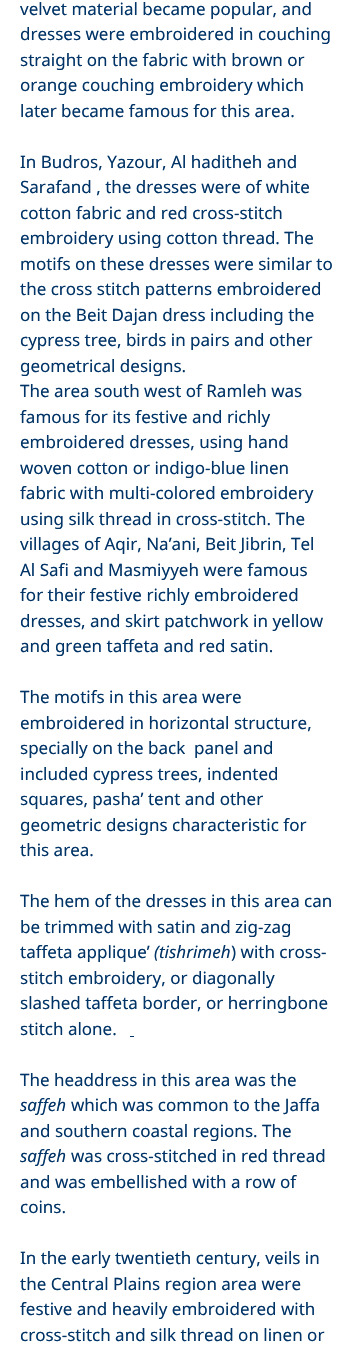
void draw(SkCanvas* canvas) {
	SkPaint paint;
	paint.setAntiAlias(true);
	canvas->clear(0xffffffff);
	SkFont f1(fontMgr->matchFamilyStyle("Noto Sans", SkFontStyle::Normal()), 17);
	f1.setSubpixel(true);
	paint.setColor(0xff003366);
	canvas->drawString("velvet material became popular, and", 20, 15, f1, paint);
	canvas->drawString("dresses were embroidered in couching", 20, 40, f1, paint);
	canvas->drawString("straight on the fabric with brown or", 20, 66, f1, paint);
	canvas->drawString("orange couching embroidery which", 20, 91, f1, paint);
	canvas->drawString("later became famous for this area.", 20, 117, f1, paint);
	canvas->drawString("In Budros, Yazour, Al haditheh and", 20, 168, f1, paint);
	canvas->drawString("Sarafand , the dresses were of white", 20, 193, f1, paint);
	canvas->drawString("cotton fabric and red cross-stitch", 20, 219, f1, paint);
	canvas->drawString("embroidery using cotton thread. The", 20, 244, f1, paint);
	canvas->drawString("motifs on these dresses were similar to", 20, 270, f1, paint);
	canvas->drawString("the cross stitch patterns embroidered", 20, 295, f1, paint);
	canvas->drawString("on the Beit Dajan dress including the", 20, 321, f1, paint);
	canvas->drawString("cypress tree, birds in pairs and other", 20, 346, f1, paint);
	canvas->drawString("geometrical designs.", 20, 372, f1, paint);
	canvas->drawString("The area south west of Ramleh was", 20, 397, f1, paint);
	canvas->drawString("famous for its festive and richly", 20, 423, f1, paint);
	canvas->drawString("embroidered dresses, using hand", 20, 448, f1, paint);
	canvas->drawString("woven cotton or indigo-blue linen", 20, 474, f1, paint);
	canvas->drawString("fabric with multi-colored embroidery", 20, 499, f1, paint);
	canvas->drawString("using silk thread in cross-stitch. The", 20, 525, f1, paint);
	canvas->drawString("villages of Aqir, Na’ani, Beit Jibrin, Tel", 20, 550, f1, paint);
	canvas->drawString("Al Safi and Masmiyyeh were famous", 20, 576, f1, paint);
	canvas->drawString("for their festive richly embroidered", 20, 601, f1, paint);
	canvas->drawString("dresses, and skirt patchwork in yellow", 20, 627, f1, paint);
	canvas->drawString("and green taffeta and red satin.", 20, 652, f1, paint);
	canvas->drawString("The motifs in this area were", 20, 703, f1, paint);
	canvas->drawString("embroidered in horizontal structure,", 20, 729, f1, paint);
	canvas->drawString("specially on the back  panel and", 20, 754, f1, paint);
	canvas->drawString("included cypress trees, indented", 20, 780, f1, paint);
	canvas->drawString("squares, pasha’ tent and other", 20, 805, f1, paint);
	canvas->drawString("geometric designs characteristic for", 20, 831, f1, paint);
	canvas->drawString("this area.", 20, 856, f1, paint);
	canvas->drawString("The hem of the dresses in this area can", 20, 907, f1, paint);
	canvas->drawString("be trimmed with satin and zig-zag", 20, 933, f1, paint);
	canvas->drawString("taffeta applique’", 20, 958, f1, paint);
	SkFont f2(fontMgr->matchFamilyStyle("Noto Sans", SkFontStyle::Italic()), 17);
	f2.setSubpixel(true);
	canvas->drawString("(tishrimeh", 154, 958, f2, paint);
	canvas->drawString(") with cross-", 231, 958, f1, paint);
	canvas->drawString("stitch embroidery, or diagonally", 20, 984, f1, paint);
	canvas->drawString("slashed taffeta border, or herringbone", 20, 1009, f1, paint);
	canvas->drawString("stitch alone.", 20, 1035, f1, paint);
	canvas->drawRect(SkRect::MakeXYWH(130, 1036, 4, 1), paint);
	canvas->drawString("The headdress in this area was the", 20, 1086, f1, paint);
	canvas->drawString("saffeh", 20, 1111, f2, paint);
	canvas->drawString("which was common to the Jaffa", 71, 1111, f1, paint);
	canvas->drawString("and southern coastal regions. The", 20, 1137, f1, paint);
	canvas->drawString("saffeh", 20, 1162, f2, paint);
	canvas->drawString("was cross-stitched in red thread", 71, 1162, f1, paint);
	canvas->drawString("and was embellished with a row of", 20, 1188, f1, paint);
	canvas->drawString("coins.", 20, 1213, f1, paint);
	canvas->drawString("In the early twentieth century, veils in", 20, 1264, f1, paint);
	canvas->drawString("the Central Plains region area were", 20, 1290, f1, paint);
	canvas->drawString("festive and heavily embroidered with", 20, 1315, f1, paint);
	canvas->drawString("cross-stitch and silk thread on linen or", 20, 1341, f1, paint);
}
